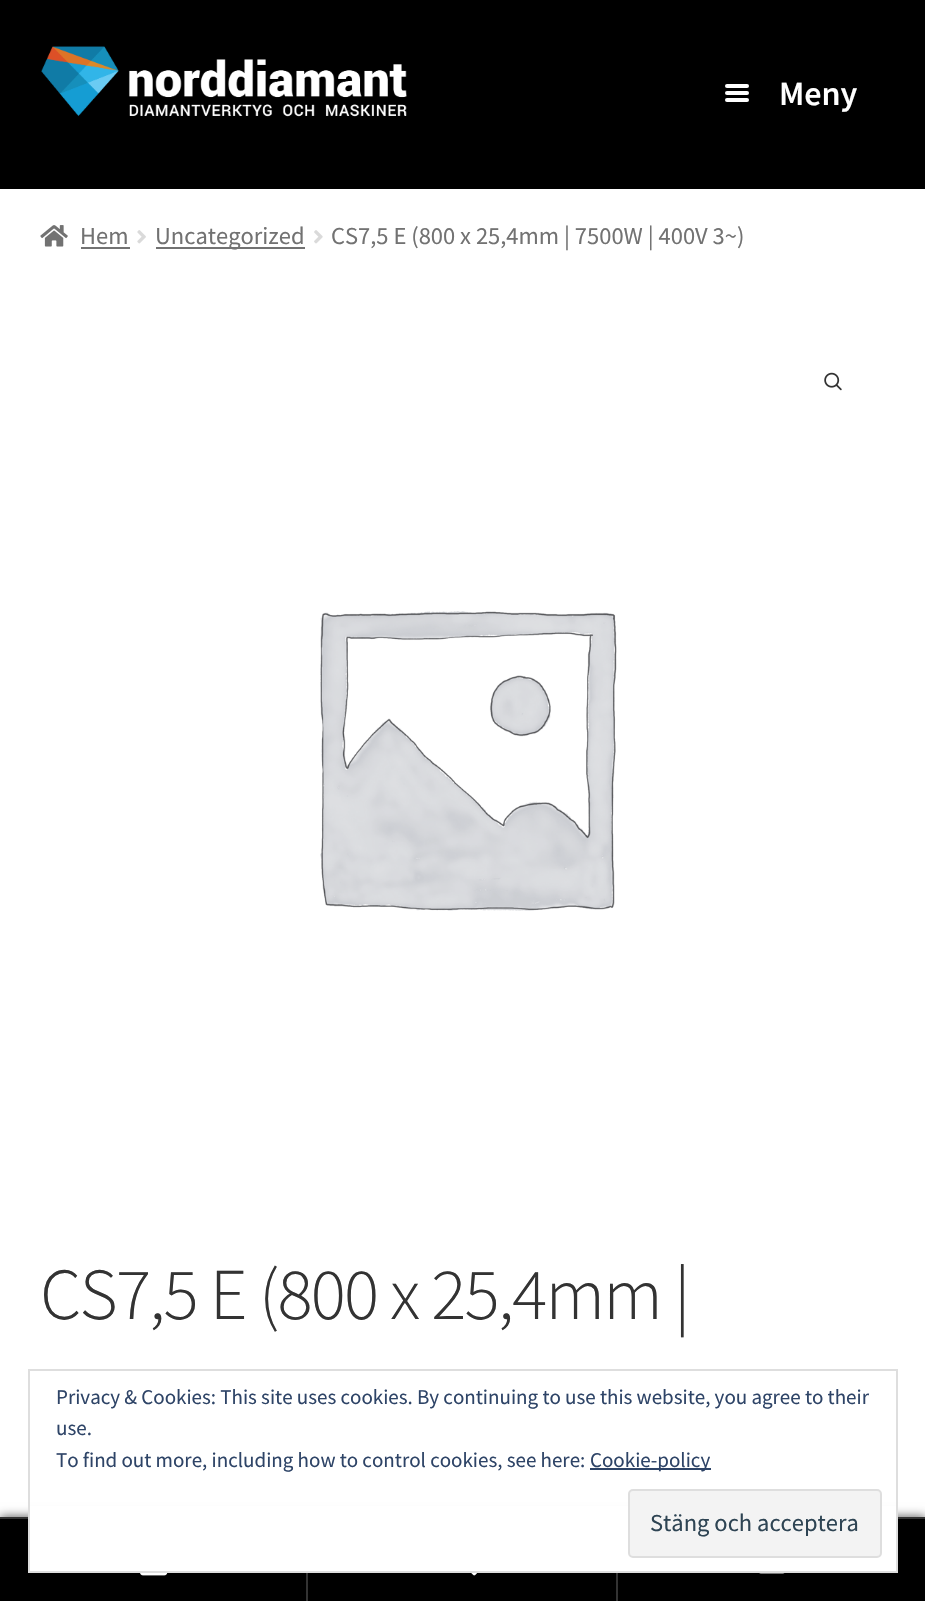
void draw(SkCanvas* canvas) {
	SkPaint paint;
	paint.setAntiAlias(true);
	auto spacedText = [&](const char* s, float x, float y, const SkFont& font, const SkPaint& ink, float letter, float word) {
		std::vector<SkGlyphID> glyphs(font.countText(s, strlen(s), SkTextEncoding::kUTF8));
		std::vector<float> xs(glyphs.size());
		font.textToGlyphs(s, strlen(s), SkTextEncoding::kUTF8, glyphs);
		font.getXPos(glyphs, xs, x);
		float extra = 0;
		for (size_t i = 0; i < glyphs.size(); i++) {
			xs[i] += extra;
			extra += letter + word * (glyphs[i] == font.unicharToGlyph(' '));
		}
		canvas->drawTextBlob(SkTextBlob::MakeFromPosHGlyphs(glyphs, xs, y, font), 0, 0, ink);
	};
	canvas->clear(0xffffffff);
	paint.setColor(0xff000000);
	canvas->drawRect(SkRect::MakeXYWH(0, 0, 925, 189), paint);
	canvas->drawImageRect(SkImages::DeferredFromEncodedData(SkData::MakeFromFileName("img1.png")), SkRect::MakeXYWH(41, 46, 366, 71), SkSamplingOptions());
	paint.setColor(0xffffffff);
	canvas->drawRoundRect(SkRect::MakeXYWH(725, 84, 24, 4), 2, 2, paint);
	canvas->drawRoundRect(SkRect::MakeXYWH(725, 91, 24, 4), 2, 2, paint);
	SkFont f1(fontMgr->matchFamilyStyle("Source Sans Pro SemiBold", SkFontStyle(600, SkFontStyle::kNormal_Width, SkFontStyle::kUpright_Slant)), 34);
	f1.setSubpixel(true);
	canvas->drawString("Meny", 779, 105, f1, paint);
	canvas->drawRoundRect(SkRect::MakeXYWH(725, 98, 24, 4), 2, 2, paint);
	canvas->drawImageRect(SkImages::DeferredFromEncodedData(SkData::MakeFromFileName("img2.png")), SkRect::MakeXYWH(40, 225, 28, 22), SkSamplingOptions());
	SkFont f2(fontMgr->matchFamilyStyle("Source Sans Pro", SkFontStyle::Normal()), 24.5);
	f2.setSubpixel(true);
	paint.setColor(0xff727272);
	canvas->drawString("Hem", 80, 244, f2, paint);
	canvas->drawRect(SkRect::MakeXYWH(81, 247, 49, 2), paint);
	canvas->drawImageRect(SkImages::DeferredFromEncodedData(SkData::MakeFromFileName("img3.png")), SkRect::MakeXYWH(137, 230, 9, 14), SkSamplingOptions());
	canvas->drawRect(SkRect::MakeXYWH(156, 247, 149, 2), paint);
	canvas->drawString("Uncategorized", 155, 244, f2, paint);
	canvas->drawImageRect(SkImages::DeferredFromEncodedData(SkData::MakeFromFileName("img4.png")), SkRect::MakeXYWH(314, 230, 9, 14), SkSamplingOptions());
	canvas->drawString("CS7,5 E (800 x 25,4mm | 7500W | 400V 3~)", 331, 244, f2, paint);
	canvas->drawImageRect(SkImages::DeferredFromEncodedData(SkData::MakeFromFileName("img5.png")), SkRect::MakeXYWH(824, 372, 18, 19), SkSamplingOptions());
	canvas->drawImageRect(SkImages::DeferredFromEncodedData(SkData::MakeFromFileName("img6.png")), SkRect::MakeXYWH(320, 611, 297, 300), SkSamplingOptions());
	SkFont f3(fontMgr->matchFamilyStyle("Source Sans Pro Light", SkFontStyle(300, SkFontStyle::kNormal_Width, SkFontStyle::kUpright_Slant)), 73.25);
	f3.setSubpixel(true);
	paint.setColor(0xff333333);
	spacedText("CS7,5 E (800 x 25,4mm |", 40, 1319, f3, paint, -1.75, 0);
	paint.setColor(0xb3000000);
	paint.setMaskFilter(SkMaskFilter::MakeBlur(kNormal_SkBlurStyle, 5));
	canvas->drawRect(SkRect::MakeXYWH(0, 1517, 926, 84), paint);
	paint.setMaskFilter(nullptr);
	paint.setColor(0xff333333);
	canvas->drawRect(SkRect::MakeXYWH(0, 1517, 925, 2), paint);
	paint.setColor(0xff000000);
	canvas->drawRect(SkRect::MakeXYWH(0, 1519, 306, 82), paint);
	paint.setColor(0xff333333);
	canvas->drawRect(SkRect::MakeXYWH(306, 1573, 2, 28), paint);
	canvas->drawImageRect(SkImages::DeferredFromEncodedData(SkData::MakeFromFileName("img7.png")), SkRect::MakeXYWH(140, 1573, 28, 3), SkSamplingOptions());
	paint.setColor(0xff000000);
	canvas->drawRect(SkRect::MakeXYWH(308, 1573, 308, 28), paint);
	paint.setColor(0xff333333);
	canvas->drawRect(SkRect::MakeXYWH(616, 1573, 2, 28), paint);
	canvas->drawImageRect(SkImages::DeferredFromEncodedData(SkData::MakeFromFileName("img8.png")), SkRect::MakeXYWH(471, 1573, 6, 3), SkSamplingOptions());
	paint.setColor(0xff000000);
	canvas->drawRect(SkRect::MakeXYWH(618, 1519, 307, 82), paint);
	canvas->drawImageRect(SkImages::DeferredFromEncodedData(SkData::MakeFromFileName("img9.png")), SkRect::MakeXYWH(759, 1573, 26, 1), SkSamplingOptions());
	paint.setColor(0xffffffff);
	canvas->drawRect(SkRect::MakeXYWH(30, 1506, 866, 65), paint);
	paint.setStroke(true);
	paint.setStrokeWidth(2);
	paint.setColor(0xffdedede);
	canvas->drawRect(SkRect::MakeXYWH(29, 1370, 868, 202), paint);
	SkFont f4(fontMgr->matchFamilyStyle("Source Sans Pro", SkFontStyle::Normal()), 21);
	f4.setSubpixel(true);
	paint.setStroke(false);
	paint.setColor(0xff2e4467);
	canvas->drawString("Privacy & Cookies: This site uses cookies. By continuing to use this website, you agree to their", 56, 1404, f4, paint);
	canvas->drawString("use.", 56, 1435, f4, paint);
	canvas->drawString("To find out more, including how to control cookies, see here:", 56, 1467, f4, paint);
	canvas->drawRect(SkRect::MakeXYWH(590, 1468, 121, 2), paint);
	canvas->drawString("Cookie-policy", 590, 1467, f4, paint);
	paint.setColor(0xfff3f3f3);
	canvas->drawRoundRect(SkRect::MakeXYWH(629, 1490, 252, 67), 4, 4, paint);
	paint.setStroke(true);
	paint.setColor(0xffdedede);
	canvas->drawRoundRect(SkRect::MakeXYWH(629, 1490, 252, 67), 4, 4, paint);
	paint.setStroke(false);
	paint.setColor(0xff2e4453);
	canvas->drawString("Stäng och acceptera", 650, 1531, f2, paint);
}
